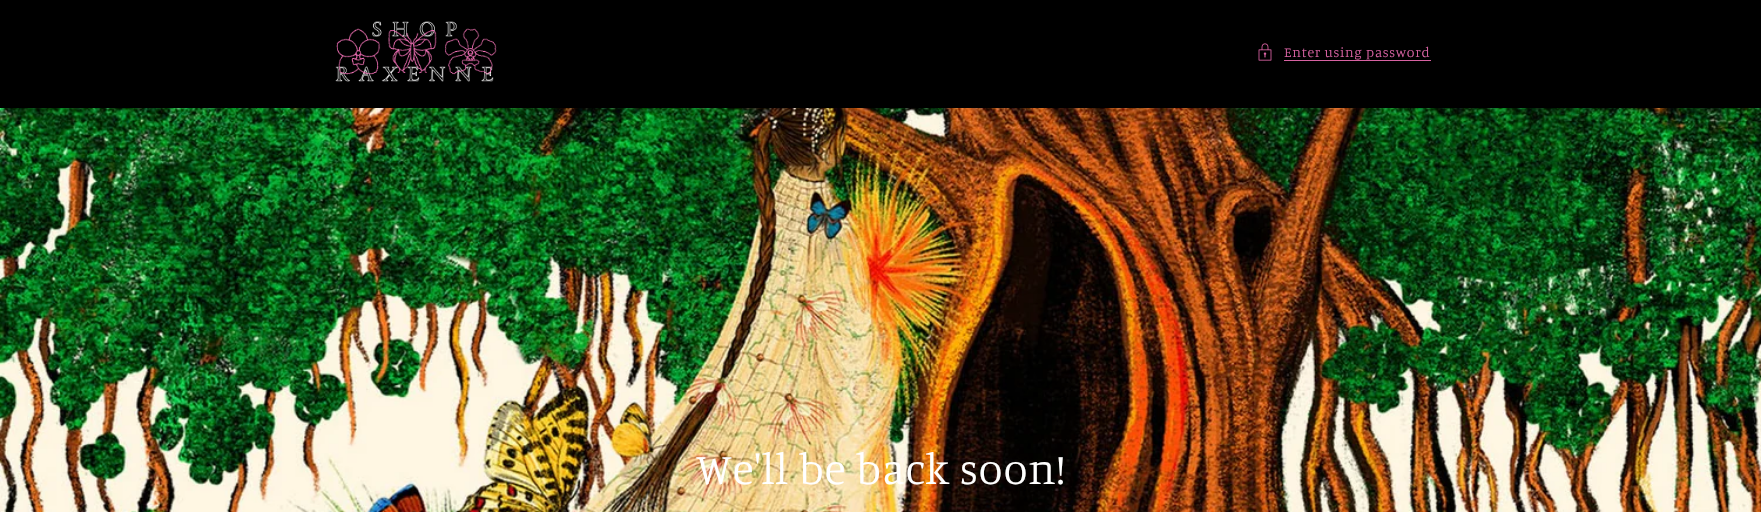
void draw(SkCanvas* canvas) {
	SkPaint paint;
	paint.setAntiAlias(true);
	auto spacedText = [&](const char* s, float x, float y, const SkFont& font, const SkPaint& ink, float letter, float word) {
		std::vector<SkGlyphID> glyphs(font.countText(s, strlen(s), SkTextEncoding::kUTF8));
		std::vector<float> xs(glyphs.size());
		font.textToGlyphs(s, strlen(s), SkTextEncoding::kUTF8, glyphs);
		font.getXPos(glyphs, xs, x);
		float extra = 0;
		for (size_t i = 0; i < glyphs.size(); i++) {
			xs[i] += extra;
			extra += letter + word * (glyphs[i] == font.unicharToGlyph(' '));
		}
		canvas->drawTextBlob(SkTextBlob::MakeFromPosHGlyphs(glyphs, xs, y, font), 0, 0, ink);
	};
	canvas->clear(0xff000000);
	canvas->drawImageRect(SkImages::DeferredFromEncodedData(SkData::MakeFromFileName("img1.png")), SkRect::MakeXYWH(335, 21, 162, 61), SkSamplingOptions());
	canvas->drawImageRect(SkImages::DeferredFromEncodedData(SkData::MakeFromFileName("img2.png")), SkRect::MakeXYWH(1258, 43, 14, 18), SkSamplingOptions());
	SkFont f1(fontMgr->matchFamilyStyle("Manuale", SkFontStyle(300, SkFontStyle::kNormal_Width, SkFontStyle::kUpright_Slant)), 14);
	f1.setSubpixel(true);
	paint.setColor(0xffd762a2);
	spacedText("Enter using password", 1284, 57, f1, paint, 0.7, 0);
	canvas->drawRect(SkRect::MakeXYWH(1284, 60, 147, 1), paint);
	canvas->drawImageRect(SkImages::DeferredFromEncodedData(SkData::MakeFromFileName("img3.png")), SkRect::MakeXYWH(0, 108, 1761, 404), SkSamplingOptions());
	SkFont f2(fontMgr->matchFamilyStyle("Manuale", SkFontStyle(300, SkFontStyle::kNormal_Width, SkFontStyle::kUpright_Slant)), 44);
	f2.setSubpixel(true);
	paint.setColor(0xffffffff);
	spacedText("We'll be back soon!", 696, 484, f2, paint, 0.7, 0);
}
